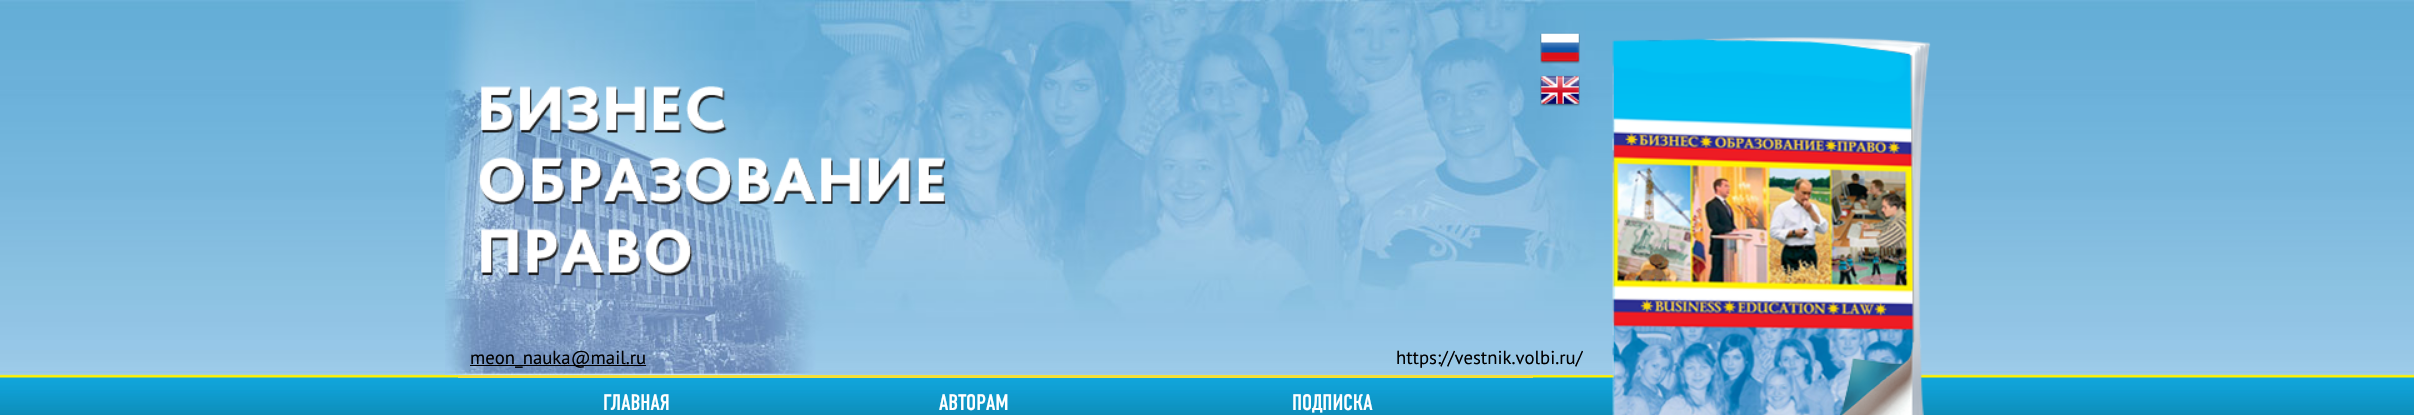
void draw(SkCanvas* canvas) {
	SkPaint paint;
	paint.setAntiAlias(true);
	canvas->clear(0xffffffff);
	canvas->drawImageRect(SkImages::DeferredFromEncodedData(SkData::MakeFromFileName("img1.png")), SkRect::MakeXYWH(0, 0, 2414, 415), SkSamplingOptions());
	canvas->drawImageRect(SkImages::DeferredFromEncodedData(SkData::MakeFromFileName("img2.png")), SkRect::MakeXYWH(445, 0, 1225, 375), SkSamplingOptions());
	canvas->drawImageRect(SkImages::DeferredFromEncodedData(SkData::MakeFromFileName("img3.png")), SkRect::MakeXYWH(478, 86, 468, 191), SkSamplingOptions());
	canvas->drawImageRect(SkImages::DeferredFromEncodedData(SkData::MakeFromFileName("img4.png")), SkRect::MakeXYWH(1540, 32, 40, 32), SkSamplingOptions());
	canvas->drawImageRect(SkImages::DeferredFromEncodedData(SkData::MakeFromFileName("img5.png")), SkRect::MakeXYWH(1540, 75, 40, 32), SkSamplingOptions());
	canvas->drawImageRect(SkImages::DeferredFromEncodedData(SkData::MakeFromFileName("img6.png")), SkRect::MakeXYWH(1612, 37, 319, 378), SkSamplingOptions());
	paint.setColor(0xff000000);
	canvas->drawRect(SkRect::MakeXYWH(470, 365, 176, 1), paint);
	SkFont f1(fontMgr->matchFamilyStyle("PT Sans", SkFontStyle::Normal()), 18.75);
	f1.setSubpixel(true);
	canvas->drawString("meon_nauka@mail.ru", 470, 364, f1, paint);
	canvas->drawString("https://vestnik.volbi.ru/", 1396, 364, f1, paint);
	paint.setColor(0xfff3e039);
	canvas->drawRect(SkRect::MakeXYWH(458, 375, 1075, 3), paint);
	SkFont f2(fontMgr->matchFamilyStyle("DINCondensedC", SkFontStyle::Normal()), 22.5);
	f2.setSubpixel(true);
	paint.setColor(0xffffffff);
	canvas->drawString("ГЛАВНАЯ", 603, 410, f2, paint);
	canvas->drawString("АВТОРАМ", 939, 410, f2, paint);
	canvas->drawString("ПОДПИСКА", 1292, 410, f2, paint);
}
